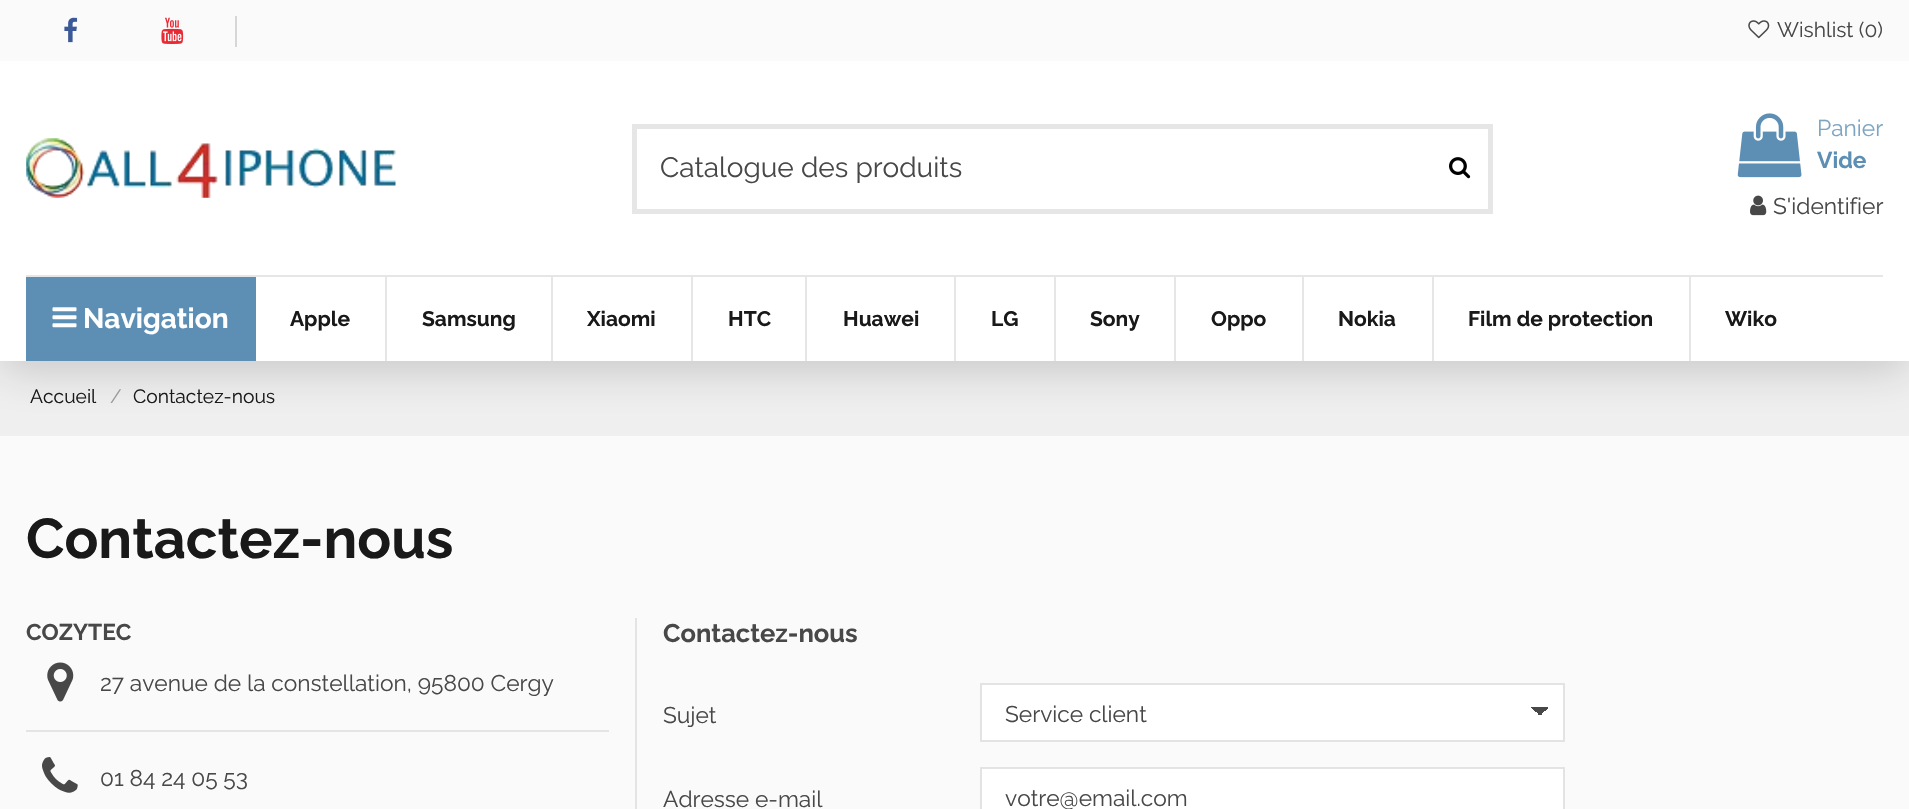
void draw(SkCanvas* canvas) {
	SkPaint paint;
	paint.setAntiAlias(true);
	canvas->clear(0xfffafafa);
	paint.setColor(0xfff0f0f0);
	canvas->drawRect(SkRect::MakeXYWH(0, 361, 1909, 75), paint);
	paint.setColor(0x2e000000);
	paint.setMaskFilter(SkMaskFilter::MakeBlur(kNormal_SkBlurStyle, 22));
	canvas->drawRect(SkRect::MakeXYWH(0, 9, 1909, 360), paint);
	paint.setMaskFilter(nullptr);
	paint.setColor(0xffffffff);
	canvas->drawRect(SkRect::MakeXYWH(0, 61, 1909, 300), paint);
	paint.setColor(0xfffafafa);
	canvas->drawRect(SkRect::MakeXYWH(0, 0, 1909, 61), paint);
	canvas->drawImageRect(SkImages::DeferredFromEncodedData(SkData::MakeFromFileName("img1.png")), SkRect::MakeXYWH(64, 17, 14, 26), SkSamplingOptions());
	canvas->drawImageRect(SkImages::DeferredFromEncodedData(SkData::MakeFromFileName("img2.png")), SkRect::MakeXYWH(161, 17, 23, 27), SkSamplingOptions());
	paint.setColor(0xffd6d6d6);
	canvas->drawRect(SkRect::MakeXYWH(235, 16, 2, 31), paint);
	canvas->drawImageRect(SkImages::DeferredFromEncodedData(SkData::MakeFromFileName("img3.png")), SkRect::MakeXYWH(1748, 20, 22, 19), SkSamplingOptions());
	SkFont f1(fontMgr->matchFamilyStyle("Raleway", SkFontStyle::Normal()), 21);
	f1.setSubpixel(true);
	paint.setColor(0xff484848);
	canvas->drawString("Wishlist (0)", 1777, 37, f1, paint);
	canvas->drawImageRect(SkImages::DeferredFromEncodedData(SkData::MakeFromFileName("img4.png")), SkRect::MakeXYWH(26, 138, 370, 60), SkSamplingOptions());
	paint.setStroke(true);
	paint.setStrokeWidth(5);
	paint.setColor(0xffe6e6e6);
	canvas->drawRect(SkRect::MakeXYWH(634.5, 126.5, 856, 85), paint);
	SkFont f2(fontMgr->matchFamilyStyle("Raleway", SkFontStyle::Normal()), 28);
	f2.setSubpixel(true);
	paint.setStroke(false);
	paint.setColor(0xff484848);
	canvas->drawString("Catalogue des produits", 660, 177, f2, paint);
	canvas->drawImageRect(SkImages::DeferredFromEncodedData(SkData::MakeFromFileName("img5.png")), SkRect::MakeXYWH(1449, 157, 22, 22), SkSamplingOptions());
	canvas->drawImageRect(SkImages::DeferredFromEncodedData(SkData::MakeFromFileName("img6.png")), SkRect::MakeXYWH(1737, 113, 65, 65), SkSamplingOptions());
	SkFont f3(fontMgr->matchFamilyStyle("Raleway", SkFontStyle::Normal()), 22.75);
	f3.setSubpixel(true);
	paint.setColor(0xff7da5c2);
	canvas->drawString("Panier", 1817, 136, f3, paint);
	SkFont f4(fontMgr->matchFamilyStyle("Raleway", SkFontStyle::Bold()), 22.75);
	f4.setSubpixel(true);
	paint.setColor(0xff5d8eb3);
	canvas->drawString("Vide", 1817, 168, f4, paint);
	canvas->drawImageRect(SkImages::DeferredFromEncodedData(SkData::MakeFromFileName("img7.png")), SkRect::MakeXYWH(1750, 195, 17, 21), SkSamplingOptions());
	paint.setColor(0xff484848);
	canvas->drawString("S'identifier", 1773, 214, f3, paint);
	paint.setColor(0xffe6e6e6);
	canvas->drawRect(SkRect::MakeXYWH(26, 275, 1857, 2), paint);
	paint.setColor(0xff5d8eb3);
	canvas->drawRect(SkRect::MakeXYWH(26, 277, 230, 84), paint);
	canvas->drawImageRect(SkImages::DeferredFromEncodedData(SkData::MakeFromFileName("img8.png")), SkRect::MakeXYWH(52, 307, 25, 21), SkSamplingOptions());
	SkFont f5(fontMgr->matchFamilyStyle("Raleway", SkFontStyle::Bold()), 28);
	f5.setSubpixel(true);
	paint.setColor(0xffffffff);
	canvas->drawString("Navigation", 83, 328, f5, paint);
	SkFont f6(fontMgr->matchFamilyStyle("Raleway", SkFontStyle::Bold()), 21);
	f6.setSubpixel(true);
	paint.setColor(0xff191919);
	canvas->drawString("Apple", 290, 326, f6, paint);
	paint.setColor(0xffe6e6e6);
	canvas->drawRect(SkRect::MakeXYWH(385, 277, 2, 84), paint);
	paint.setColor(0xff191919);
	canvas->drawString("Samsung", 422, 326, f6, paint);
	paint.setColor(0xffe6e6e6);
	canvas->drawRect(SkRect::MakeXYWH(551, 277, 2, 84), paint);
	paint.setColor(0xff191919);
	canvas->drawString("Xiaomi", 587, 326, f6, paint);
	paint.setColor(0xffe6e6e6);
	canvas->drawRect(SkRect::MakeXYWH(691, 277, 2, 84), paint);
	paint.setColor(0xff191919);
	canvas->drawString("HTC", 728, 326, f6, paint);
	paint.setColor(0xffe6e6e6);
	canvas->drawRect(SkRect::MakeXYWH(805, 277, 2, 84), paint);
	paint.setColor(0xff191919);
	canvas->drawString("Huawei", 843, 326, f6, paint);
	paint.setColor(0xffe6e6e6);
	canvas->drawRect(SkRect::MakeXYWH(954, 277, 2, 84), paint);
	paint.setColor(0xff191919);
	canvas->drawString("LG", 991, 326, f6, paint);
	paint.setColor(0xffe6e6e6);
	canvas->drawRect(SkRect::MakeXYWH(1054, 277, 2, 84), paint);
	paint.setColor(0xff191919);
	canvas->drawString("Sony", 1090, 326, f6, paint);
	paint.setColor(0xffe6e6e6);
	canvas->drawRect(SkRect::MakeXYWH(1174, 277, 2, 84), paint);
	paint.setColor(0xff191919);
	canvas->drawString("Oppo", 1211, 326, f6, paint);
	paint.setColor(0xffe6e6e6);
	canvas->drawRect(SkRect::MakeXYWH(1302, 277, 2, 84), paint);
	paint.setColor(0xff191919);
	canvas->drawString("Nokia", 1338, 326, f6, paint);
	paint.setColor(0xffe6e6e6);
	canvas->drawRect(SkRect::MakeXYWH(1432, 277, 2, 84), paint);
	paint.setColor(0xff191919);
	canvas->drawString("Film de protection", 1468, 326, f6, paint);
	paint.setColor(0xffe6e6e6);
	canvas->drawRect(SkRect::MakeXYWH(1689, 277, 2, 84), paint);
	paint.setColor(0xff191919);
	canvas->drawString("Wiko", 1725, 326, f6, paint);
	SkFont f7(fontMgr->matchFamilyStyle("Raleway", SkFontStyle::Normal()), 19.25);
	f7.setSubpixel(true);
	canvas->drawString("Accueil", 30, 403, f7, paint);
	paint.setColor(0xff9a9a9a);
	canvas->drawString("/", 110, 403, f7, paint);
	paint.setColor(0xff191919);
	canvas->drawString("Contactez-nous", 133, 403, f7, paint);
	SkFont f8(fontMgr->matchFamilyStyle("Raleway", SkFontStyle::Bold()), 56);
	f8.setSubpixel(true);
	canvas->drawString("Contactez-nous", 26, 558, f8, paint);
	paint.setColor(0xffe4e4e4);
	canvas->drawRect(SkRect::MakeXYWH(635, 618, 2, 191), paint);
	paint.setColor(0xff484848);
	canvas->drawString("COZYTEC", 26, 640, f4, paint);
	canvas->drawImageRect(SkImages::DeferredFromEncodedData(SkData::MakeFromFileName("img9.png")), SkRect::MakeXYWH(47, 662, 27, 40), SkSamplingOptions());
	canvas->drawString("27 avenue de la constellation, 95800 Cergy", 100, 691, f3, paint);
	paint.setColor(0xffe4e4e4);
	canvas->drawRect(SkRect::MakeXYWH(26, 730, 583, 2), paint);
	canvas->drawImageRect(SkImages::DeferredFromEncodedData(SkData::MakeFromFileName("img10.png")), SkRect::MakeXYWH(42, 757, 36, 36), SkSamplingOptions());
	paint.setColor(0xff484848);
	canvas->drawString("01 84 24 05 53", 100, 786, f3, paint);
	SkFont f9(fontMgr->matchFamilyStyle("Raleway", SkFontStyle::Bold()), 25.5);
	f9.setSubpixel(true);
	canvas->drawString("Contactez-nous", 663, 642, f9, paint);
	canvas->drawString("Sujet", 663, 723, f3, paint);
	paint.setColor(0xffffffff);
	canvas->drawRect(SkRect::MakeXYWH(982, 685, 581, 55), paint);
	{
		const SkColor colors[] = {0xff484848, 0xffffffff};
		const float stops[] = {0.5, 0.5};
		const SkPoint ends[] = {{1540, 707}, {1549, 716}};
		paint.setShader(SkGradientShader::MakeLinear(ends, colors, stops, 2, SkTileMode::kClamp));
		paint.setAlpha(255);
	}
	canvas->drawRect(SkRect::MakeXYWH(1540, 707, 9, 8), paint);
	{
		const SkColor colors[] = {0xffffffff, 0xff484848};
		const float stops[] = {0.5, 0.5};
		const SkPoint ends[] = {{1531, 716}, {1540, 707}};
		paint.setShader(SkGradientShader::MakeLinear(ends, colors, stops, 2, SkTileMode::kClamp));
		paint.setAlpha(255);
	}
	canvas->drawRect(SkRect::MakeXYWH(1531, 707, 9, 8), paint);
	paint.setStroke(true);
	paint.setStrokeWidth(2);
	paint.setShader(nullptr);
	paint.setColor(0xffe3e3e3);
	canvas->drawRect(SkRect::MakeXYWH(981, 684, 583, 57), paint);
	paint.setStroke(false);
	paint.setColor(0xff484848);
	canvas->drawString("Service client", 1005, 722, f3, paint);
	canvas->drawString("Adresse e-mail", 663, 807, f3, paint);
	paint.setColor(0xffffffff);
	canvas->drawRect(SkRect::MakeXYWH(981, 768, 583, 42), paint);
	paint.setStroke(true);
	paint.setColor(0xffe3e3e3);
	canvas->drawRect(SkRect::MakeXYWH(981, 768, 583, 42), paint);
	paint.setStroke(false);
	paint.setColor(0xff484848);
	canvas->drawString("votre@email.com", 1005, 806, f3, paint);
}
